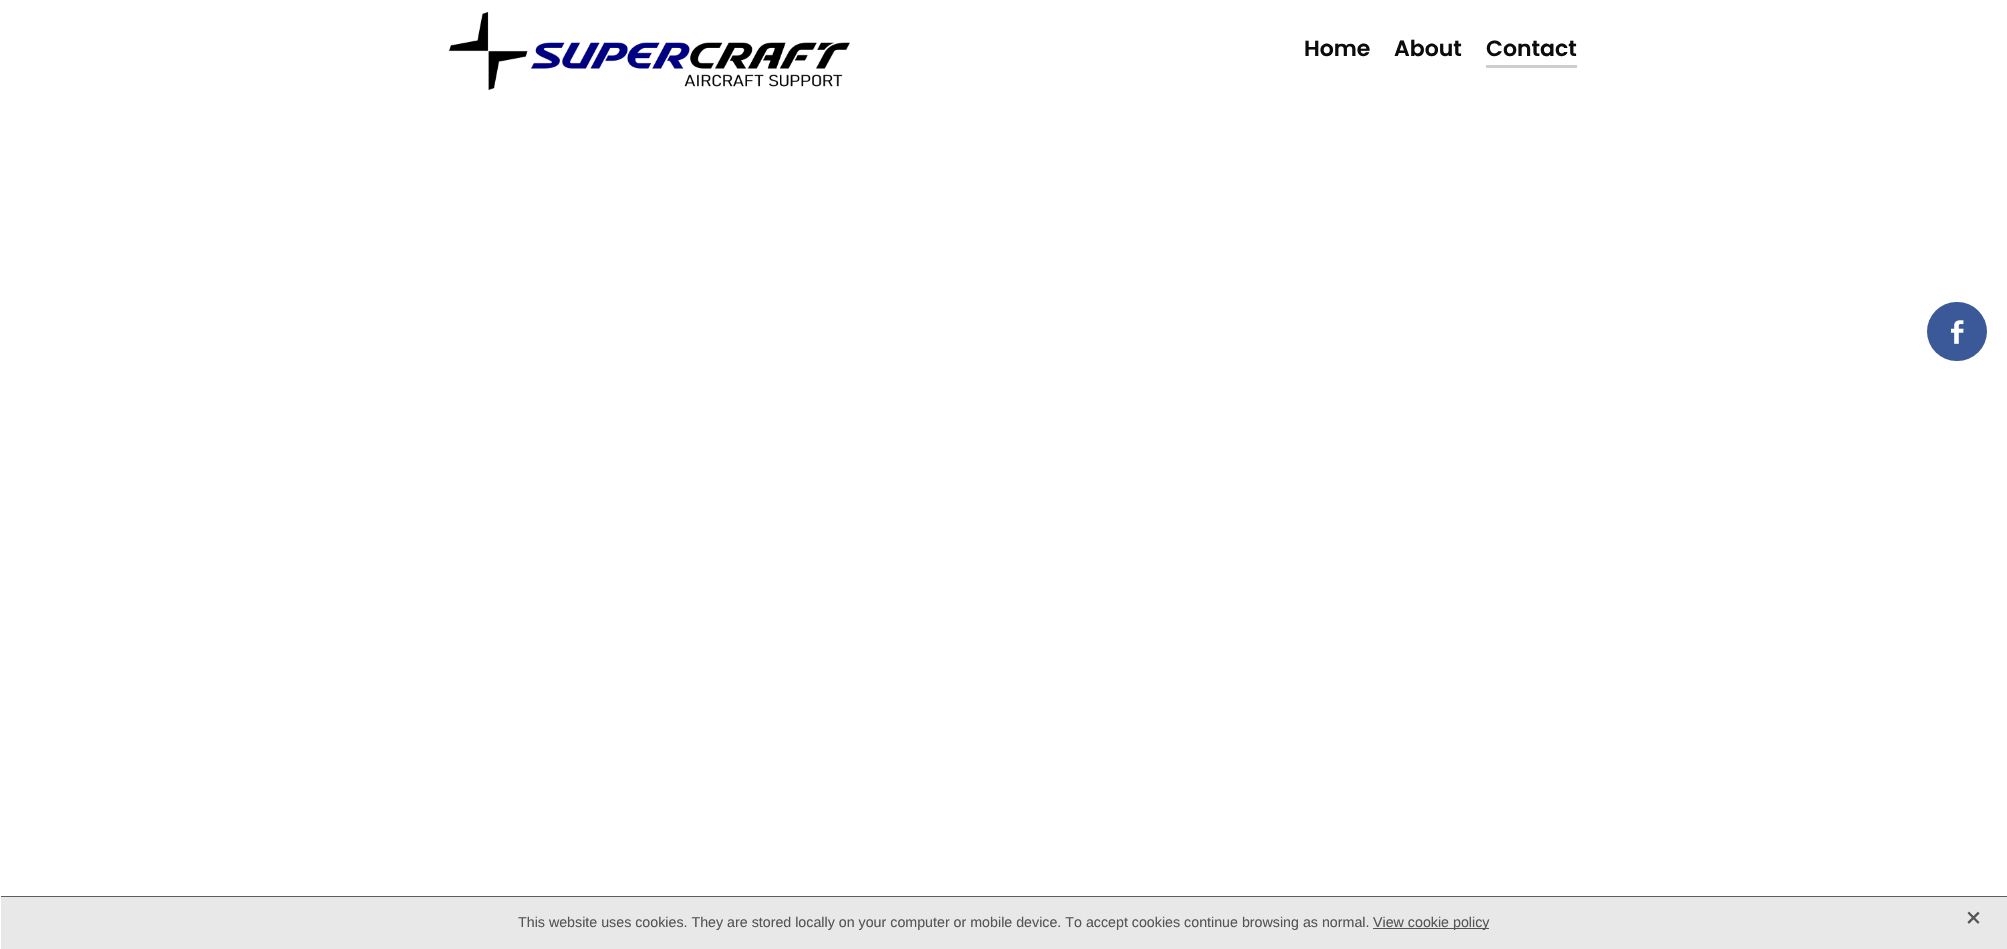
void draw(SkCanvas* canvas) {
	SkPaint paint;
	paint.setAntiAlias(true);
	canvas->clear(0xffffffff);
	canvas->drawImageRect(SkImages::DeferredFromEncodedData(SkData::MakeFromFileName("img1.png")), SkRect::MakeXYWH(449, 12, 401, 78), SkSamplingOptions());
	SkFont f1(fontMgr->matchFamilyStyle("Poppins", SkFontStyle(600, SkFontStyle::kNormal_Width, SkFontStyle::kUpright_Slant)), 22);
	f1.setSubpixel(true);
	paint.setColor(0xff0c0c0c);
	canvas->drawString("Home", 1304, 56, f1, paint);
	canvas->drawString("About", 1394, 56, f1, paint);
	paint.setColor(0xffcecece);
	canvas->drawRect(SkRect::MakeXYWH(1486, 65, 91, 3), paint);
	paint.setColor(0xff0c0c0c);
	canvas->drawString("Contact", 1486, 56, f1, paint);
	paint.setColor(0xff3b5998);
	canvas->drawRoundRect(SkRect::MakeXYWH(1927, 302, 60, 59), 29.5, 29.5, paint);
	canvas->drawImageRect(SkImages::DeferredFromEncodedData(SkData::MakeFromFileName("img2.png")), SkRect::MakeXYWH(1951, 320, 13, 24), SkSamplingOptions());
	paint.setColor(0xffe8e8e8);
	canvas->drawRect(SkRect::MakeXYWH(1, 897, 2006, 52), paint);
	paint.setColor(0xff5d5d5d);
	canvas->drawRect(SkRect::MakeXYWH(1, 896, 2006, 1), paint);
	SkFont f2(fontMgr->matchFamilyStyle("Liberation Sans", SkFontStyle::Normal()), 14.25);
	f2.setSubpixel(true);
	paint.setColor(0xff555555);
	canvas->drawString("This website uses cookies. They are stored locally on your computer or mobile device. To accept cookies continue browsing as normal.", 518, 927, f2, paint);
	canvas->drawRect(SkRect::MakeXYWH(1373, 928, 116, 1), paint);
	canvas->drawString("View cookie policy", 1373, 927, f2, paint);
	canvas->drawImageRect(SkImages::DeferredFromEncodedData(SkData::MakeFromFileName("img3.png")), SkRect::MakeXYWH(1967, 911, 13, 13), SkSamplingOptions());
}
